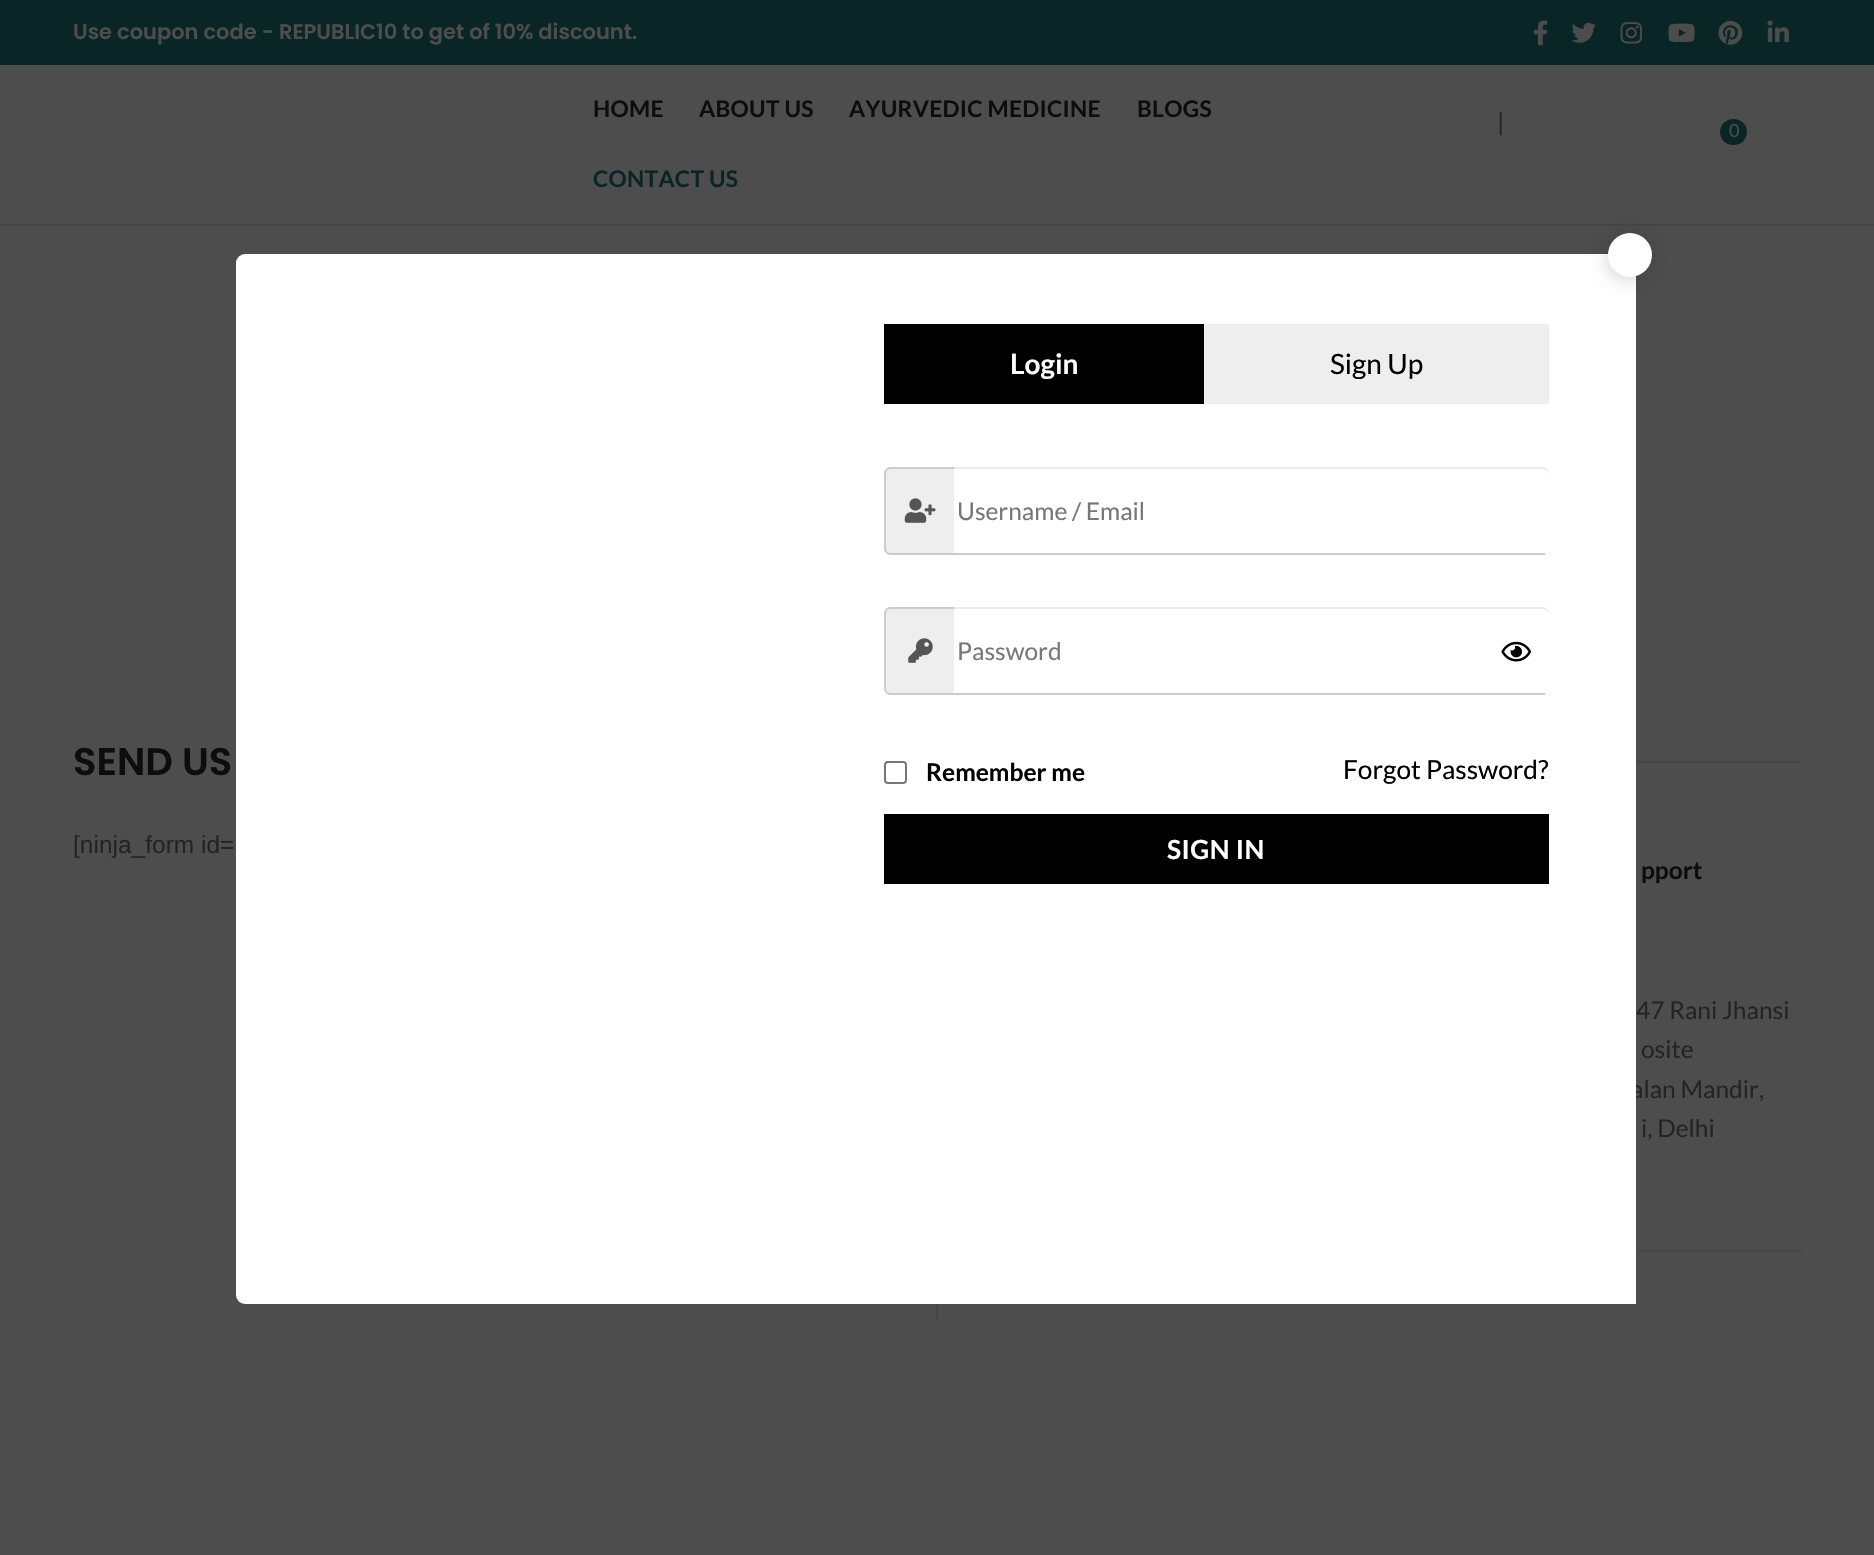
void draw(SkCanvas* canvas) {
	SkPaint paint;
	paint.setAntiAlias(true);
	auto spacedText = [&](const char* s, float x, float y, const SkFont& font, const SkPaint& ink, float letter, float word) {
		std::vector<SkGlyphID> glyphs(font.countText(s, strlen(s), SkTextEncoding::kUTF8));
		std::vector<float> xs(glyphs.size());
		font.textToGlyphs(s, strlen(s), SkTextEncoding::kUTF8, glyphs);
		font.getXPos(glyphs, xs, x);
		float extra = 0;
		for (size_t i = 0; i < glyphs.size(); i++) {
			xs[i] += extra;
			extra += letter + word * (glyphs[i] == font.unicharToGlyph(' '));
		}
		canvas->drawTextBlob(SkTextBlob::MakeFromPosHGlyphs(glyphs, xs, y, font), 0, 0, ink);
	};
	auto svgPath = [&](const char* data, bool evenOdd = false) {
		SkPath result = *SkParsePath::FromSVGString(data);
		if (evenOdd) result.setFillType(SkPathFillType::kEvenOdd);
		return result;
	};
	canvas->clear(0xff4d4d4d);
	paint.setColor(0xff0a2525);
	canvas->drawRect(SkRect::MakeXYWH(0, 0, 1874, 65), paint);
	SkFont f1(fontMgr->matchFamilyStyle("Poppins", SkFontStyle(600, SkFontStyle::kNormal_Width, SkFontStyle::kUpright_Slant)), 21);
	f1.setSubpixel(true);
	paint.setColor(0xff4d4d4d);
	canvas->drawString("Use coupon code - REPUBLIC10 to get of 10% discount.", 73, 39, f1, paint);
	canvas->drawImageRect(SkImages::DeferredFromEncodedData(SkData::MakeFromFileName("img1.png")), SkRect::MakeXYWH(1534, 20, 14, 26), SkSamplingOptions());
	canvas->drawImageRect(SkImages::DeferredFromEncodedData(SkData::MakeFromFileName("img2.png")), SkRect::MakeXYWH(1571, 22, 25, 21), SkSamplingOptions());
	canvas->drawImageRect(SkImages::DeferredFromEncodedData(SkData::MakeFromFileName("img3.png")), SkRect::MakeXYWH(1620, 22, 22, 22), SkSamplingOptions());
	canvas->drawImageRect(SkImages::DeferredFromEncodedData(SkData::MakeFromFileName("img4.png")), SkRect::MakeXYWH(1668, 23, 27, 19), SkSamplingOptions());
	canvas->drawImageRect(SkImages::DeferredFromEncodedData(SkData::MakeFromFileName("img5.png")), SkRect::MakeXYWH(1718, 20, 25, 25), SkSamplingOptions());
	canvas->drawImageRect(SkImages::DeferredFromEncodedData(SkData::MakeFromFileName("img6.png")), SkRect::MakeXYWH(1767, 20, 22, 22), SkSamplingOptions());
	paint.setColor(0xff454545);
	canvas->drawRect(SkRect::MakeXYWH(0, 224, 1874, 2), paint);
	SkFont f2(fontMgr->matchFamilyStyle("Lato", SkFontStyle::Bold()), 22.75);
	f2.setSubpixel(true);
	paint.setColor(0xff0e0d0d);
	spacedText("HOME", 593, 117, f2, paint, 0.3, 0);
	spacedText("ABOUT US", 699, 117, f2, paint, 0.3, 0);
	spacedText("AYURVEDIC MEDICINE", 849, 117, f2, paint, 0.3, 0);
	spacedText("BLOGS", 1137, 117, f2, paint, 0.3, 0);
	paint.setColor(0xff0a2525);
	spacedText("CONTACT US", 593, 187, f2, paint, 0.3, 0);
	SkFont f3(fontMgr->matchFamilyStyle("Lato", SkFontStyle::Normal()), 24.5);
	f3.setSubpixel(true);
	paint.setColor(0xff242424);
	canvas->drawString("|", 1497, 131, f3, paint);
	paint.setColor(0xff0a2525);
	canvas->drawRoundRect(SkRect::MakeXYWH(1720, 119, 27, 26), 13, 13, paint);
	SkFont f4(fontMgr->matchFamilyStyle("Lato", SkFontStyle::Normal()), 18);
	f4.setSubpixel(true);
	paint.setColor(0xff4d4d4d);
	canvas->drawString("0", 1729, 137, f4, paint);
	paint.setColor(0xff454545);
	canvas->drawRect(SkRect::MakeXYWH(936, 1304, 2, 16), paint);
	SkFont f5(fontMgr->matchFamilyStyle("Poppins", SkFontStyle(600, SkFontStyle::kNormal_Width, SkFontStyle::kUpright_Slant)), 38.5);
	f5.setSubpixel(true);
	paint.setColor(0xff0e0d0d);
	canvas->drawString("SEND US", 73, 775, f5, paint);
	SkFont f6(fontMgr->matchFamilyStyle("Liberation Sans", SkFontStyle::Normal()), 24.5);
	f6.setSubpixel(true);
	paint.setColor(0xff242424);
	canvas->drawString("[ninja_form id=", 73, 853, f6, paint);
	paint.setColor(0xff454545);
	canvas->drawRect(SkRect::MakeXYWH(1636, 761, 165, 2), paint);
	SkFont f7(fontMgr->matchFamilyStyle("Lato", SkFontStyle::Bold()), 24.5);
	f7.setSubpixel(true);
	paint.setColor(0xff0e0d0d);
	canvas->drawString("pport", 1641, 879, f7, paint);
	paint.setColor(0xff242424);
	canvas->drawString("47 Rani Jhansi", 1636, 1019, f3, paint);
	canvas->drawString("osite", 1641, 1058, f3, paint);
	canvas->drawString("alan Mandir,", 1631, 1098, f3, paint);
	canvas->drawString("i, Delhi", 1641, 1137, f3, paint);
	paint.setColor(0xff474747);
	canvas->drawRect(SkRect::MakeXYWH(1636, 1250, 165, 2), paint);
	paint.setColor(0xffffffff);
	canvas->drawRoundRect(SkRect::MakeXYWH(236, 254, 1400, 1050), 9, 9, paint);
	canvas->drawRect(SkRect::MakeXYWH(1627, 254, 9, 1050), paint);
	paint.setColor(0x2b000000);
	paint.setMaskFilter(SkMaskFilter::MakeBlur(kNormal_SkBlurStyle, 9));
	canvas->drawRoundRect(SkRect::MakeXYWH(1607, 236, 43, 44), 21.5, 21.5, paint);
	paint.setMaskFilter(nullptr);
	paint.setColor(0xffffffff);
	canvas->drawCircle(1630, 255, 22, paint);
	paint.setColor(0xff000000);
	canvas->drawRect(SkRect::MakeXYWH(884, 324, 320, 80), paint);
	SkFont f8(fontMgr->matchFamilyStyle("Lato", SkFontStyle::Bold()), 28);
	f8.setSubpixel(true);
	paint.setColor(0xffffffff);
	canvas->drawString("Login", 1010, 374, f8, paint);
	paint.setColor(0xffeeeeee);
	canvas->drawRect(SkRect::MakeXYWH(1204, 324, 345, 80), paint);
	SkFont f9(fontMgr->matchFamilyStyle("Lato", SkFontStyle::Normal()), 28);
	f9.setSubpixel(true);
	paint.setColor(0xff000000);
	canvas->drawString("Sign Up", 1330, 374, f9, paint);
	paint.setColor(0xffeeeeee);
	canvas->drawPath(svgPath("M891 467H954V555H891C887 555 884 552 884 548V474C884 470 887 467 891 467Z"), paint);
	paint.setColor(0xffcccccc);
	canvas->drawPath(svgPath("M891 467H954V555H891C887 555 884 552 884 548V474C884 470 887 467 891 467ZM891 469H954V553H891C888 553 886 551 886 548V474C886 471 888 469 891 469Z", true), paint);
	canvas->drawImageRect(SkImages::DeferredFromEncodedData(SkData::MakeFromFileName("img7.png")), SkRect::MakeXYWH(904, 498, 32, 25), SkSamplingOptions());
	paint.setColor(0xffececec);
	canvas->drawPath(svgPath("M954 469H1542C1545 469 1548 471 1549 474C1549 470 1546 467 1542 467H954V553Z"), paint);
	paint.setColor(0xffcccccc);
	canvas->drawRect(SkRect::MakeXYWH(954, 553, 591, 2), paint);
	paint.setColor(0xff777777);
	canvas->drawString("Username / Email", 957, 520, f3, paint);
	paint.setColor(0xffeeeeee);
	canvas->drawPath(svgPath("M891 607H954V695H891C887 695 884 692 884 688V614C884 610 887 607 891 607Z"), paint);
	paint.setColor(0xffcccccc);
	canvas->drawPath(svgPath("M891 607H954V695H891C887 695 884 692 884 688V614C884 610 887 607 891 607ZM891 609H954V693H891C888 693 886 691 886 688V614C886 611 888 609 891 609Z", true), paint);
	canvas->drawImageRect(SkImages::DeferredFromEncodedData(SkData::MakeFromFileName("img8.png")), SkRect::MakeXYWH(908, 638, 25, 25), SkSamplingOptions());
	paint.setColor(0xffececec);
	canvas->drawPath(svgPath("M954 609H1542C1545 609 1548 611 1549 614C1549 610 1546 607 1542 607H954V693Z"), paint);
	paint.setColor(0xffcccccc);
	canvas->drawRect(SkRect::MakeXYWH(954, 693, 591, 2), paint);
	paint.setColor(0xff777777);
	canvas->drawString("Password", 957, 660, f3, paint);
	canvas->drawImageRect(SkImages::DeferredFromEncodedData(SkData::MakeFromFileName("img9.png")), SkRect::MakeXYWH(1501, 641, 30, 21), SkSamplingOptions());
	paint.setStroke(true);
	paint.setStrokeWidth(2);
	paint.setColor(0xff767676);
	canvas->drawRoundRect(SkRect::MakeXYWH(885, 762, 21, 21), 3, 3, paint);
	paint.setStroke(false);
	paint.setColor(0xff000000);
	canvas->drawString("Remember me", 926, 781, f7, paint);
	SkFont f10(fontMgr->matchFamilyStyle("Lato", SkFontStyle::Normal()), 26.25);
	f10.setSubpixel(true);
	canvas->drawString("Forgot Password?", 1343, 779, f10, paint);
	canvas->drawRect(SkRect::MakeXYWH(884, 814, 665, 70), paint);
	SkFont f11(fontMgr->matchFamilyStyle("Lato", SkFontStyle::Bold()), 26.25);
	f11.setSubpixel(true);
	paint.setColor(0xffffffff);
	spacedText("SIGN IN", 1167, 859, f11, paint, 0.5, 0);
}
